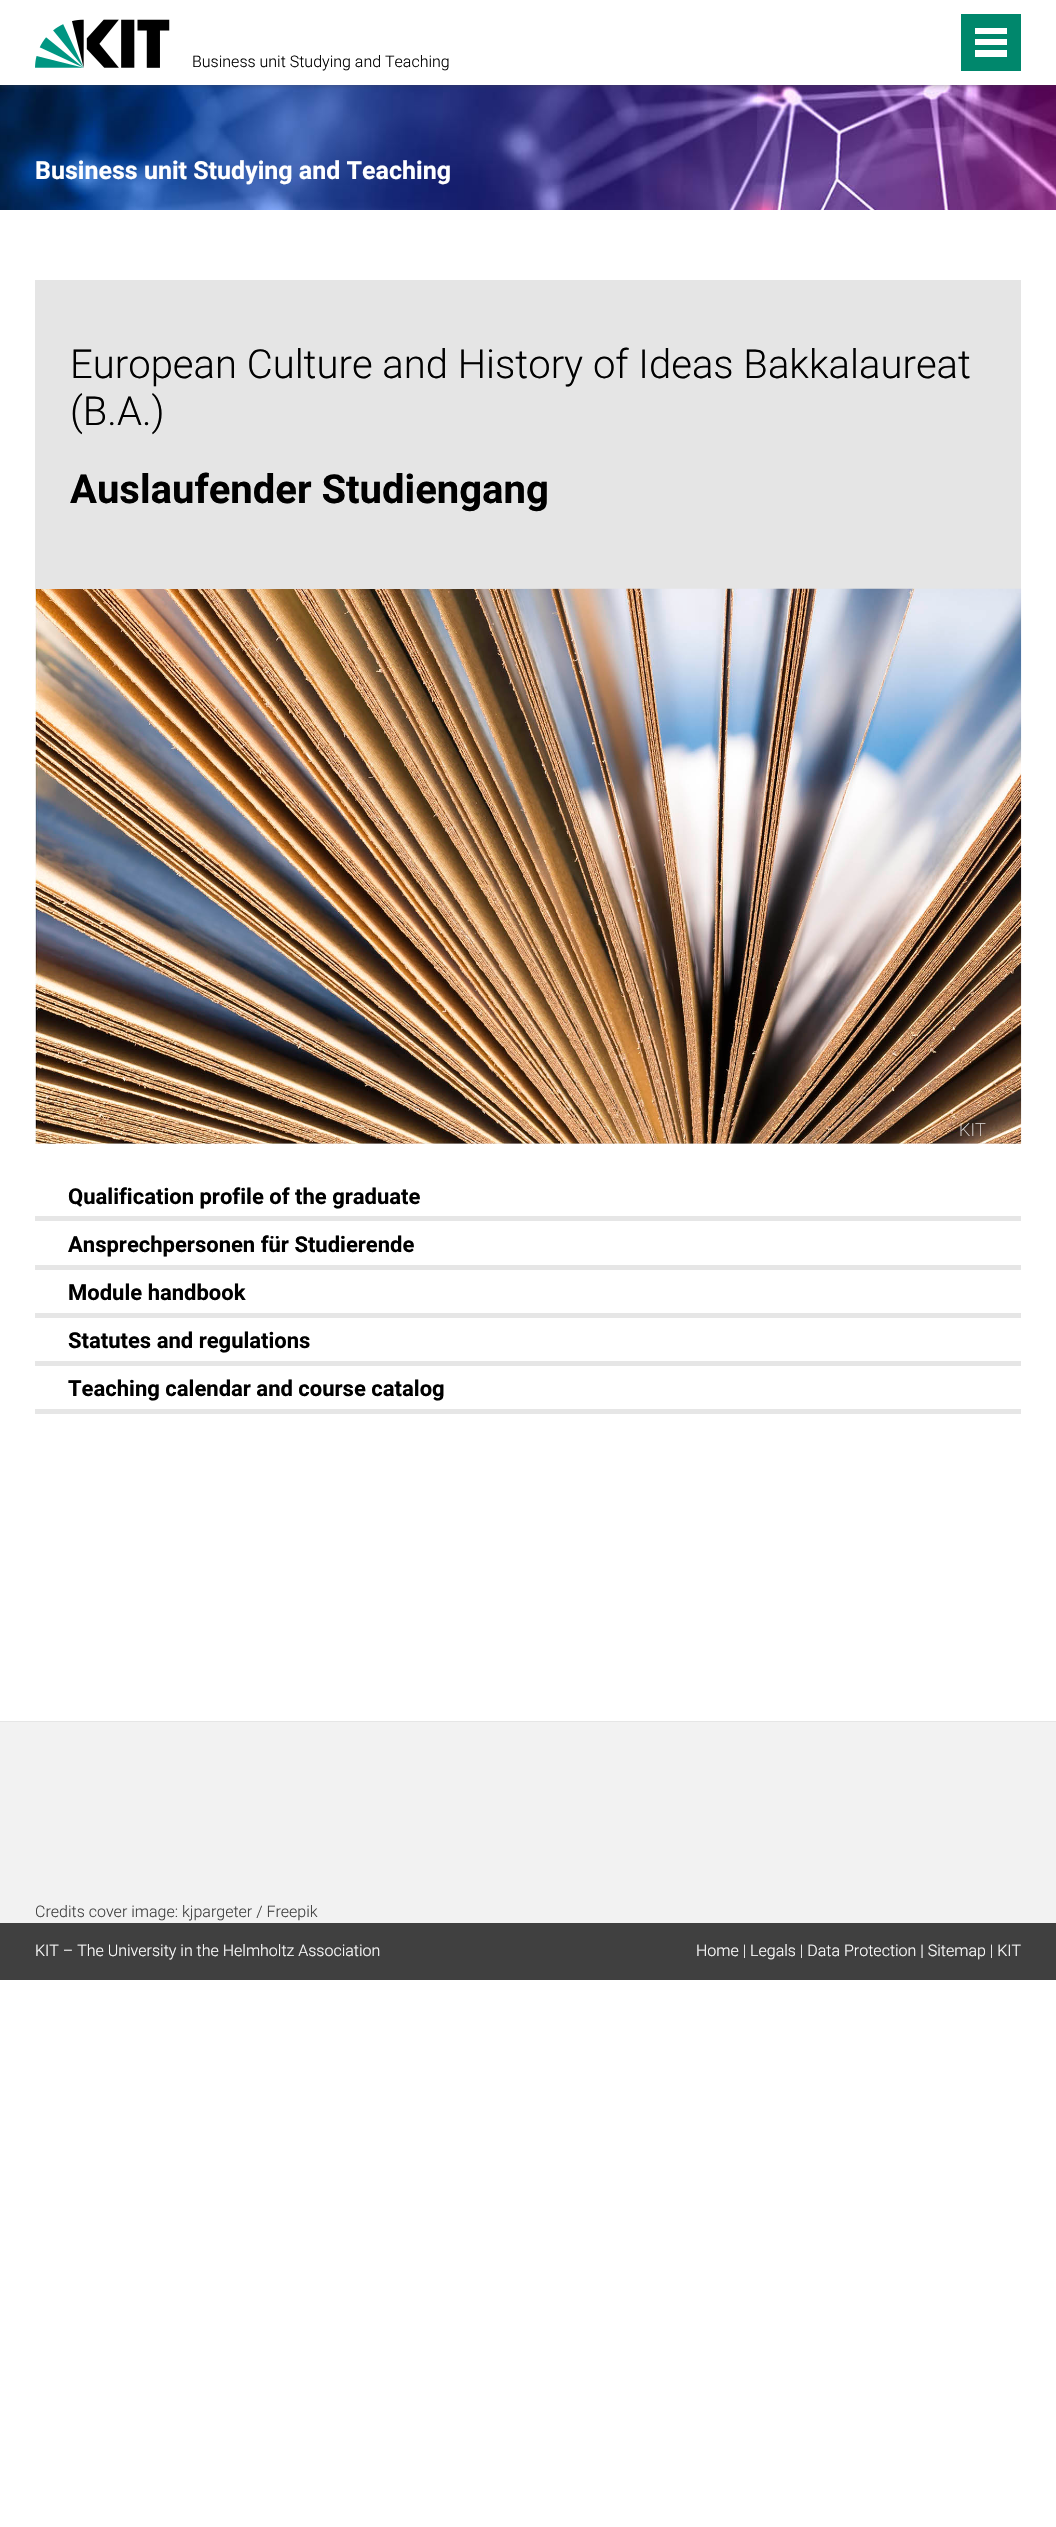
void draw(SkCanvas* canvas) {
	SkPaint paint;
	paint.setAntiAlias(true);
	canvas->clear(0xffffffff);
	canvas->drawImageRect(SkImages::DeferredFromEncodedData(SkData::MakeFromFileName("img2.png")), SkRect::MakeXYWH(0, 85, 1056, 125), SkSamplingOptions());
	canvas->save();
	canvas->clipRect(SkRect::MakeXYWH(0, 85, 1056, 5));
	paint.setColor(0x80404040);
	paint.setMaskFilter(SkMaskFilter::MakeBlur(kNormal_SkBlurStyle, 3));
	canvas->drawRect(SkRect::MakeXYWH(0, 0, 1056, 85), paint);
	paint.setMaskFilter(nullptr);
	canvas->restore();
	canvas->drawImageRect(SkImages::DeferredFromEncodedData(SkData::MakeFromFileName("img1.png")), SkRect::MakeXYWH(35, 19, 135, 49), SkSamplingOptions());
	SkFont f1(fontMgr->matchFamilyStyle("Roboto", SkFontStyle(300, SkFontStyle::kNormal_Width, SkFontStyle::kUpright_Slant)), 16);
	f1.setSubpixel(true);
	paint.setColor(0xff000000);
	canvas->drawString("Business unit Studying and Teaching", 192, 67, f1, paint);
	paint.setColor(0xff00876c);
	canvas->drawRect(SkRect::MakeXYWH(961, 14, 60, 57), paint);
	paint.setColor(0xffffffff);
	canvas->drawRect(SkRect::MakeXYWH(975, 50, 32, 7), paint);
	canvas->drawRect(SkRect::MakeXYWH(975, 39, 32, 6), paint);
	canvas->drawRect(SkRect::MakeXYWH(975, 28, 32, 6), paint);
	SkFont f2(fontMgr->matchFamilyStyle("Roboto", SkFontStyle::Bold()), 25);
	f2.setSubpixel(true);
	canvas->drawString("Business unit Studying and Teaching", 35, 179, f2, paint);
	paint.setColor(0xffe5e5e5);
	canvas->drawRect(SkRect::MakeXYWH(35, 280, 986, 864), paint);
	canvas->drawImageRect(SkImages::DeferredFromEncodedData(SkData::MakeFromFileName("img3.png")), SkRect::MakeXYWH(35, 588, 987, 556), SkSamplingOptions());
	{
		const SkColor colors[] = {0xffe5e5e5, 0xffe5e5e5, 0xf7e5e5e5, 0xe3e5e5e5, 0x00e5e5e5, 0x00e5e5e5};
		const float stops[] = {0, 0.4, 0.43, 0.45, 0.6, 1};
		const SkPoint ends[] = {{35, 434}, {1021, 434}};
		paint.setShader(SkGradientShader::MakeLinear(ends, colors, stops, 6, SkTileMode::kClamp));
		paint.setAlpha(255);
	}
	canvas->drawRect(SkRect::MakeXYWH(35, 588, 562, 1), paint);
	SkFont f3(fontMgr->matchFamilyStyle("Roboto", SkFontStyle(300, SkFontStyle::kNormal_Width, SkFontStyle::kUpright_Slant)), 40);
	f3.setSubpixel(true);
	paint.setShader(nullptr);
	paint.setColor(0xff000000);
	canvas->drawString("European Culture and History of Ideas Bakkalaureat", 70, 378, f3, paint);
	canvas->drawString("(B.A.)", 70, 425, f3, paint);
	SkFont f4(fontMgr->matchFamilyStyle("Roboto", SkFontStyle::Bold()), 40);
	f4.setSubpixel(true);
	canvas->drawString("Auslaufender Studiengang", 70, 503, f4, paint);
	SkFont f5(fontMgr->matchFamilyStyle("Roboto", SkFontStyle(100, SkFontStyle::kNormal_Width, SkFontStyle::kUpright_Slant)), 18);
	f5.setSubpixel(true);
	paint.setColor(0xffffffff);
	canvas->drawString("KIT", 959, 1136, f5, paint);
	paint.setColor(0xffe6e6e6);
	canvas->drawRect(SkRect::MakeXYWH(35, 1216, 986, 5), paint);
	SkFont f6(fontMgr->matchFamilyStyle("Roboto", SkFontStyle::Bold()), 22);
	f6.setSubpixel(true);
	paint.setColor(0xff000000);
	canvas->drawString("Qualification profile of the graduate", 68, 1204, f6, paint);
	paint.setColor(0xffe6e6e6);
	canvas->drawRect(SkRect::MakeXYWH(35, 1265, 986, 5), paint);
	paint.setColor(0xff000000);
	canvas->drawString("Ansprechpersonen für Studierende", 68, 1252, f6, paint);
	paint.setColor(0xffe6e6e6);
	canvas->drawRect(SkRect::MakeXYWH(35, 1313, 986, 5), paint);
	paint.setColor(0xff000000);
	canvas->drawString("Module handbook", 68, 1300, f6, paint);
	paint.setColor(0xffe6e6e6);
	canvas->drawRect(SkRect::MakeXYWH(35, 1361, 986, 5), paint);
	paint.setColor(0xff000000);
	canvas->drawString("Statutes and regulations", 68, 1348, f6, paint);
	paint.setColor(0xffe6e6e6);
	canvas->drawRect(SkRect::MakeXYWH(35, 1409, 986, 5), paint);
	paint.setColor(0xff000000);
	canvas->drawString("Teaching calendar and course catalog", 68, 1396, f6, paint);
	paint.setColor(0xfff2f2f2);
	canvas->drawRect(SkRect::MakeXYWH(0, 1722, 1056, 201), paint);
	paint.setColor(0xffe6e6e6);
	canvas->drawRect(SkRect::MakeXYWH(0, 1721, 1056, 1), paint);
	paint.setColor(0xff404040);
	canvas->drawString("Credits cover image: kjpargeter / Freepik", 35, 1917, f1, paint);
	canvas->drawRect(SkRect::MakeXYWH(0, 1923, 1056, 57), paint);
	paint.setColor(0xffffffff);
	canvas->drawString("KIT – The University in the Helmholtz Association", 35, 1956, f1, paint);
	canvas->drawString("Home | Legals | Data Protection | Sitemap | KIT", 696, 1956, f1, paint);
}
